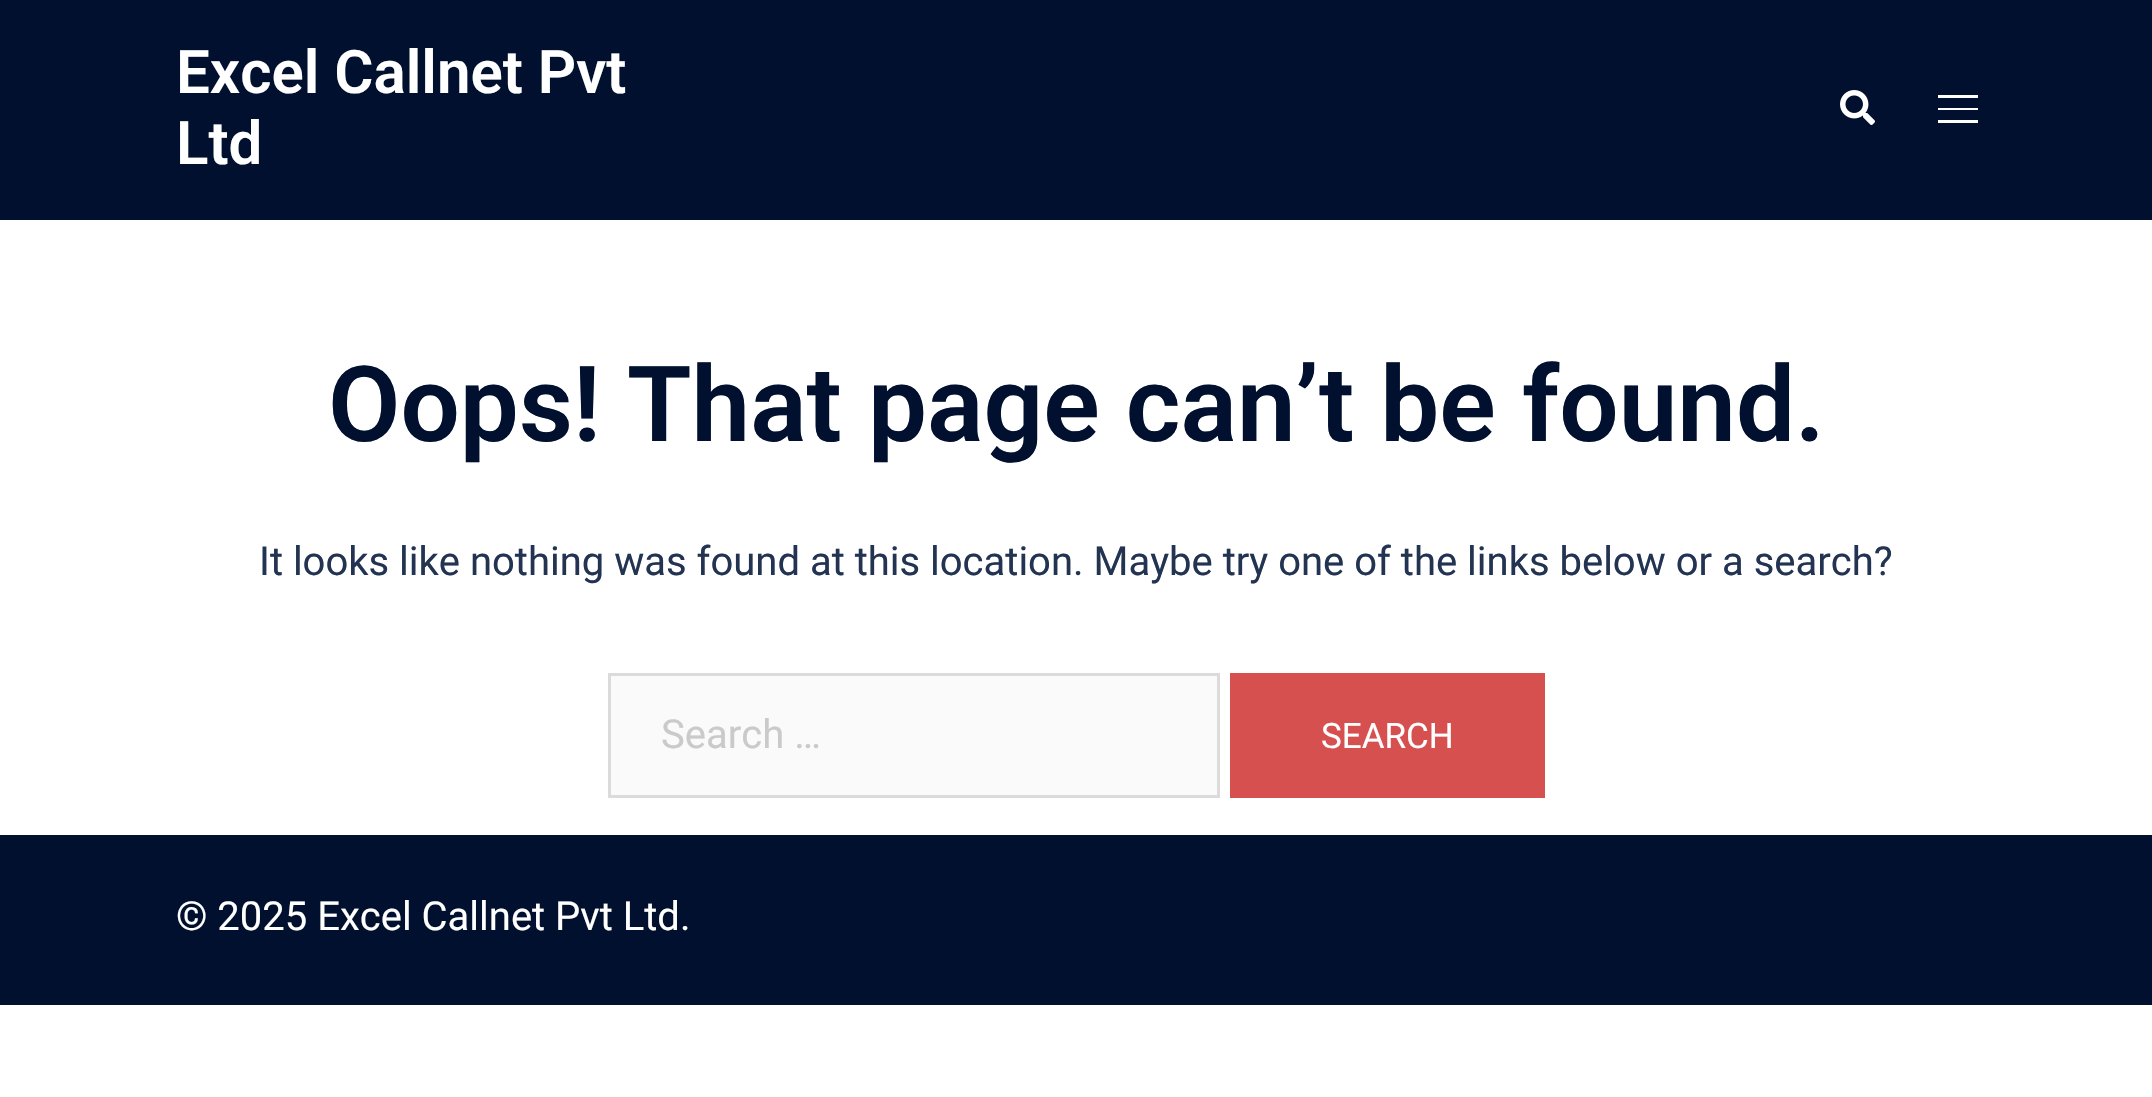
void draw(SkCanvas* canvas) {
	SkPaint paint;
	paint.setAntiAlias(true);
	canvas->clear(0xffffffff);
	paint.setColor(0xff00102e);
	canvas->drawRect(SkRect::MakeXYWH(0, 0, 2152, 220), paint);
	SkFont f1(fontMgr->matchFamilyStyle("Roboto", SkFontStyle(600, SkFontStyle::kNormal_Width, SkFontStyle::kUpright_Slant)), 60);
	f1.setSubpixel(true);
	paint.setColor(0xffffffff);
	canvas->drawString("Excel Callnet Pvt", 176, 93, f1, paint);
	canvas->drawString("Ltd", 176, 164, f1, paint);
	canvas->drawImageRect(SkImages::DeferredFromEncodedData(SkData::MakeFromFileName("img1.png")), SkRect::MakeXYWH(1840, 90, 35, 35), SkSamplingOptions());
	canvas->drawRect(SkRect::MakeXYWH(1938, 95, 40, 3), paint);
	canvas->drawRect(SkRect::MakeXYWH(1938, 108, 40, 2), paint);
	canvas->drawRect(SkRect::MakeXYWH(1938, 120, 40, 3), paint);
	SkFont f2(fontMgr->matchFamilyStyle("Roboto", SkFontStyle(600, SkFontStyle::kNormal_Width, SkFontStyle::kUpright_Slant)), 105);
	f2.setSubpixel(true);
	paint.setColor(0xff00102e);
	canvas->drawString("Oops! That page can’t be found.", 328, 441, f2, paint);
	SkFont f3(fontMgr->matchFamilyStyle("Roboto", SkFontStyle::Normal()), 40);
	f3.setSubpixel(true);
	paint.setColor(0xff233452);
	canvas->drawString("It looks like nothing was found at this location. Maybe try one of the links below or a search?", 259, 575, f3, paint);
	paint.setColor(0xfffafafa);
	canvas->drawRect(SkRect::MakeXYWH(609.5, 674.5, 609, 122), paint);
	paint.setStroke(true);
	paint.setStrokeWidth(3);
	paint.setColor(0xffdbdbdb);
	canvas->drawRect(SkRect::MakeXYWH(609.5, 674.5, 609, 122), paint);
	paint.setStroke(false);
	paint.setColor(0xffcacaca);
	canvas->drawString("Search …", 661, 748, f3, paint);
	paint.setColor(0xffd65050);
	canvas->drawRect(SkRect::MakeXYWH(1230, 673, 315, 125), paint);
	SkFont f4(fontMgr->matchFamilyStyle("Roboto", SkFontStyle::Normal()), 35);
	f4.setSubpixel(true);
	paint.setColor(0xffffffff);
	canvas->drawString("SEARCH", 1321, 748, f4, paint);
	paint.setColor(0xff00102e);
	canvas->drawRect(SkRect::MakeXYWH(0, 835, 2152, 170), paint);
	paint.setColor(0xffffffff);
	canvas->drawString("© 2025 Excel Callnet Pvt Ltd.", 176, 930, f3, paint);
}
